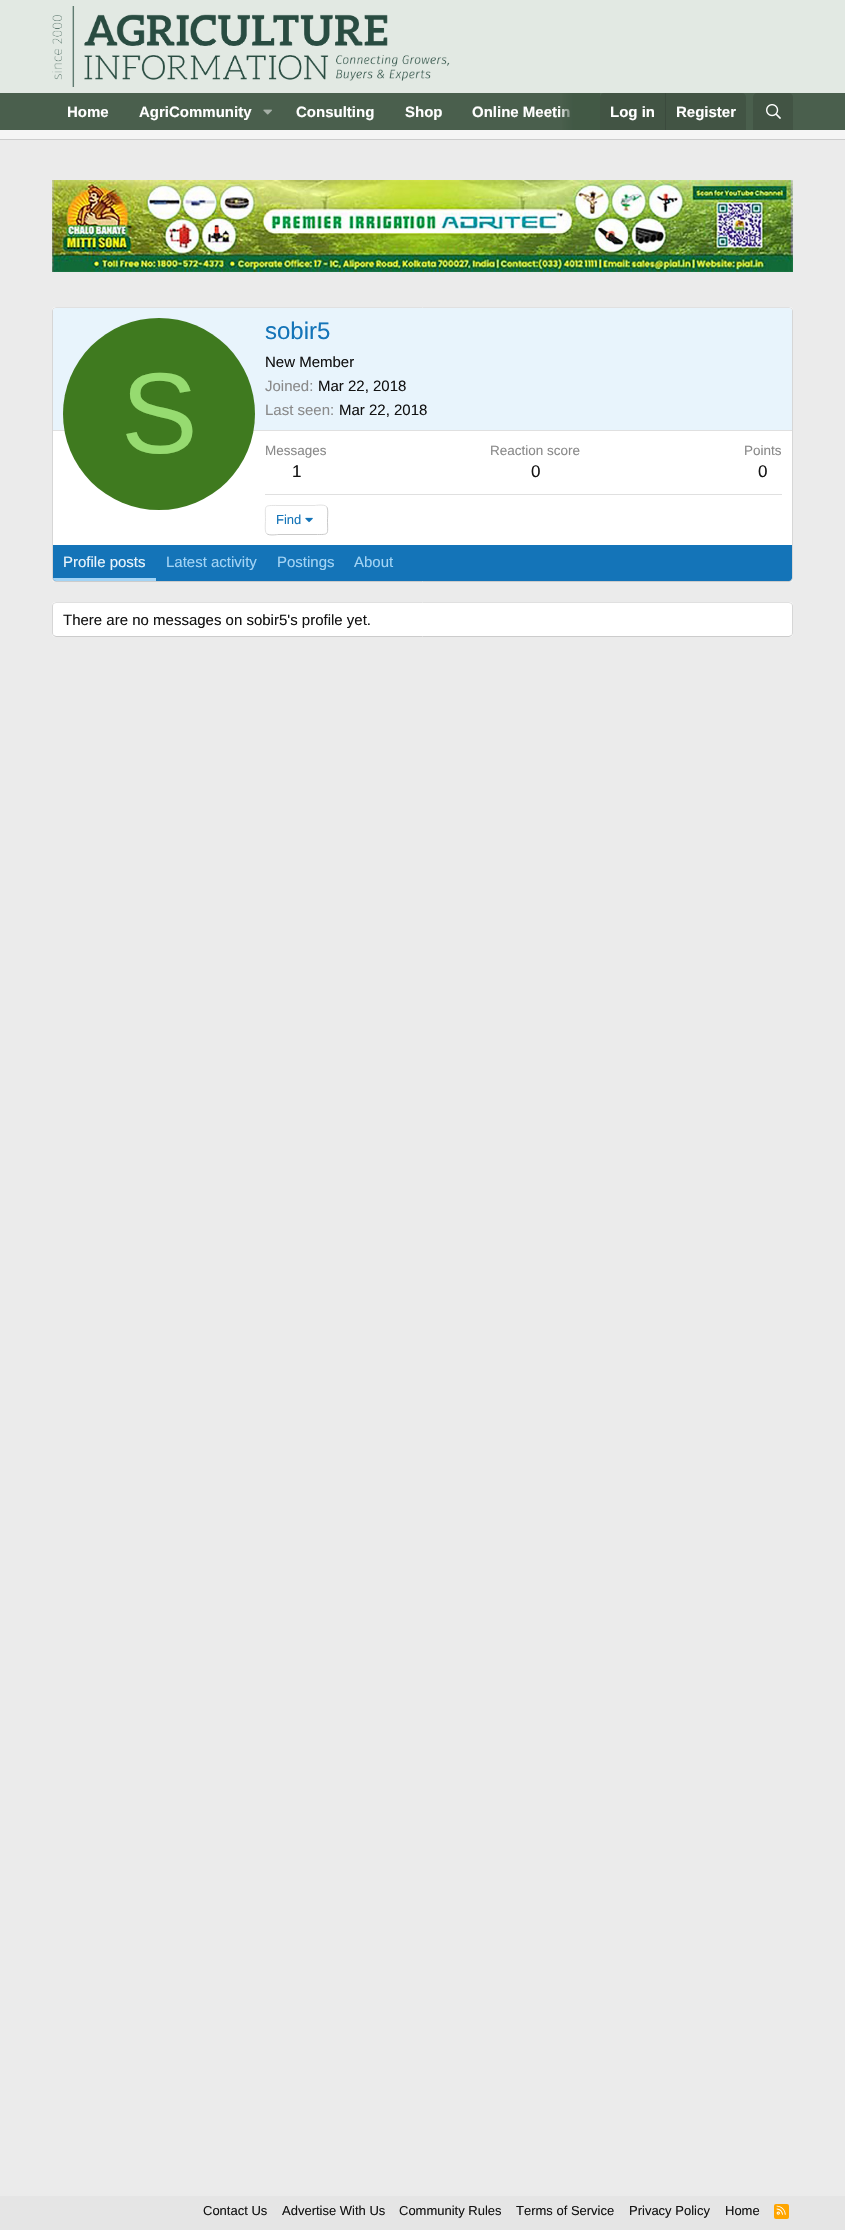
void draw(SkCanvas* canvas) {
	SkPaint paint;
	paint.setAntiAlias(true);
	auto svgPath = [&](const char* data, bool evenOdd = false) {
		SkPath result = *SkParsePath::FromSVGString(data);
		if (evenOdd) result.setFillType(SkPathFillType::kEvenOdd);
		return result;
	};
	canvas->clear(0xffebebeb);
	paint.setColor(0xffe2e9e3);
	canvas->drawRect(SkRect::MakeXYWH(0, 0, 845, 93), paint);
	canvas->drawImageRect(SkImages::DeferredFromEncodedData(SkData::MakeFromFileName("img1.png")), SkRect::MakeXYWH(52, 6, 398, 81), SkSamplingOptions());
	paint.setColor(0xff4a5f4d);
	canvas->drawRect(SkRect::MakeXYWH(0, 93, 845, 37), paint);
	SkFont f1(fontMgr->matchFamilyStyle("Liberation Sans", SkFontStyle::Bold()), 15);
	f1.setSubpixel(true);
	paint.setColor(0xffffffff);
	canvas->drawString("Home", 67, 117, f1, paint);
	canvas->drawString("AgriCommunity", 139, 117, f1, paint);
	canvas->drawImageRect(SkImages::DeferredFromEncodedData(SkData::MakeFromFileName("img2.png")), SkRect::MakeXYWH(263, 109, 9, 6), SkSamplingOptions());
	canvas->drawString("Consulting", 296, 117, f1, paint);
	canvas->drawString("Shop", 405, 117, f1, paint);
	canvas->drawString("Online Meetin", 472, 117, f1, paint);
	{
		const SkColor colors[] = {0x00415845, 0xf2415845};
		const float stops[] = {0, 0.33};
		const SkPoint ends[] = {{560, 112}, {600, 112}};
		paint.setShader(SkGradientShader::MakeLinear(ends, colors, stops, 2, SkTileMode::kClamp));
		paint.setAlpha(255);
	}
	canvas->drawRect(SkRect::MakeXYWH(562, 93, 38, 37), paint);
	paint.setShader(nullptr);
	paint.setColor(0xff425444);
	canvas->drawPath(svgPath("M604 93H742C744 93 746 95 746 97V130H600V97C600 95 602 93 604 93Z"), paint);
	paint.setColor(0xffffffff);
	canvas->drawString("Log in", 610, 117, f1, paint);
	paint.setColor(0xff3b4a3d);
	canvas->drawRect(SkRect::MakeXYWH(665, 93, 1, 37), paint);
	paint.setColor(0xffffffff);
	canvas->drawString("Register", 676, 117, f1, paint);
	paint.setColor(0xff425444);
	canvas->drawPath(svgPath("M757 93H789C791 93 793 95 793 97V130H753V97C753 95 755 93 757 93Z"), paint);
	canvas->drawImageRect(SkImages::DeferredFromEncodedData(SkData::MakeFromFileName("img3.png")), SkRect::MakeXYWH(766, 104, 15, 15), SkSamplingOptions());
	paint.setColor(0xfff5f5f5);
	canvas->drawRect(SkRect::MakeXYWH(0, 130, 845, 9), paint);
	paint.setColor(0xffcccccc);
	canvas->drawRect(SkRect::MakeXYWH(0, 139, 845, 1), paint);
	canvas->drawImageRect(SkImages::DeferredFromEncodedData(SkData::MakeFromFileName("img4.png")), SkRect::MakeXYWH(52, 180, 741, 92), SkSamplingOptions());
	paint.setColor(0xffffffff);
	canvas->drawRoundRect(SkRect::MakeXYWH(52, 307, 741, 275), 4, 4, paint);
	paint.setStroke(true);
	paint.setStrokeWidth(1);
	paint.setColor(0xffe0e0e0);
	canvas->drawPath(svgPath("M53.5 308.5L56 307.5H789L791.5 308.5"), paint);
	paint.setColor(0xffd6d6d6);
	canvas->drawPath(svgPath("M791.5 308.5C792 309 792.5 310 792.5 311V578C792.5 579 792 580 791.5 580.5"), paint);
	paint.setColor(0xffcccccc);
	canvas->drawPath(svgPath("M791.5 580.5L789 581.5H56L53.5 580.5"), paint);
	paint.setColor(0xffd6d6d6);
	canvas->drawPath(svgPath("M53.5 580.5C53 580 52.5 579 52.5 578V311C52.5 310 53 309 53.5 308.5"), paint);
	paint.setStroke(false);
	paint.setColor(0xffe8f4fc);
	canvas->drawPath(svgPath("M56 308H789C790.5 308 792 309.5 792 311V431H53V311C53 309.5 54.5 308 56 308Z"), paint);
	paint.setColor(0xffe0e0e0);
	canvas->drawRect(SkRect::MakeXYWH(53, 430, 739, 1), paint);
	paint.setColor(0xff3f7a1f);
	canvas->drawCircle(159, 414, 96, paint);
	SkFont f2(fontMgr->matchFamilyStyle("Liberation Sans", SkFontStyle::Normal()), 115);
	f2.setSubpixel(true);
	paint.setColor(0xff96db70);
	canvas->drawString("S", 121, 453, f2, paint);
	SkFont f3(fontMgr->matchFamilyStyle("Liberation Sans", SkFontStyle::Normal()), 24);
	f3.setSubpixel(true);
	paint.setColor(0xff1474b8);
	canvas->drawString("sobir5", 265, 339, f3, paint);
	SkFont f4(fontMgr->matchFamilyStyle("Liberation Sans", SkFontStyle::Normal()), 15);
	f4.setSubpixel(true);
	paint.setColor(0xff141414);
	canvas->drawString("New Member", 265, 367, f4, paint);
	paint.setColor(0xff8a8a8a);
	canvas->drawString("Joined:", 265, 391, f4, paint);
	paint.setColor(0xff141414);
	canvas->drawString("Mar 22, 2018", 318, 391, f4, paint);
	paint.setColor(0xff8a8a8a);
	canvas->drawString("Last seen:", 265, 415, f4, paint);
	paint.setColor(0xff141414);
	canvas->drawString("Mar 22, 2018", 339, 415, f4, paint);
	SkFont f5(fontMgr->matchFamilyStyle("Liberation Sans", SkFontStyle::Normal()), 13.5);
	f5.setSubpixel(true);
	paint.setColor(0xff8a8a8a);
	canvas->drawString("Messages", 265, 455, f5, paint);
	SkFont f6(fontMgr->matchFamilyStyle("Liberation Sans", SkFontStyle::Normal()), 17);
	f6.setSubpixel(true);
	paint.setColor(0xff141414);
	canvas->drawString("1", 292, 477, f6, paint);
	paint.setColor(0xff8a8a8a);
	canvas->drawString("Reaction score", 490, 455, f5, paint);
	paint.setColor(0xff141414);
	canvas->drawString("0", 531, 477, f6, paint);
	paint.setColor(0xff8a8a8a);
	canvas->drawString("Points", 744, 455, f5, paint);
	paint.setColor(0xff141414);
	canvas->drawString("0", 758, 477, f6, paint);
	paint.setColor(0xffe0e0e0);
	canvas->drawRect(SkRect::MakeXYWH(265, 494, 517, 1), paint);
	paint.setStroke(true);
	paint.setColor(0xffc9c9c9);
	canvas->drawPath(svgPath("M326.5 506.5C328.5 508.5 327.5 517 327.5 520C327.5 535.5 330 534.5 315 534.5H278C277.5 534.5 269 536 266.5 533.5"), paint);
	paint.setColor(0xffe3e3e3);
	canvas->drawPath(svgPath("M266.5 533.5C264.5 531.5 265.5 523 265.5 520C265.5 504.5 263 505.5 278 505.5H315C315.5 505.5 324 504 326.5 506.5"), paint);
	SkFont f7(fontMgr->matchFamilyStyle("Liberation Sans", SkFontStyle::Normal()), 13);
	f7.setSubpixel(true);
	paint.setStroke(false);
	paint.setColor(0xff1474b8);
	canvas->drawString("Find", 276, 524, f7, paint);
	canvas->drawImageRect(SkImages::DeferredFromEncodedData(SkData::MakeFromFileName("img5.png")), SkRect::MakeXYWH(305, 517, 8, 6), SkSamplingOptions());
	canvas->drawPath(svgPath("M53 545H792V578C792 579.5 790.5 581 789 581H56C54.5 581 53 579.5 53 578Z"), paint);
	paint.setColor(0xffa3d4f5);
	canvas->drawPath(svgPath("M53 578H156V581H56C54.5 581 53 579.5 53 578Z"), paint);
	paint.setColor(0xffe8f4fc);
	canvas->drawString("Profile posts", 63, 567, f4, paint);
	paint.setColor(0xffa3d4f5);
	canvas->drawString("Latest activity", 166, 567, f4, paint);
	canvas->drawString("Postings", 277, 567, f4, paint);
	canvas->drawString("About", 354, 567, f4, paint);
	paint.setColor(0xffffffff);
	canvas->drawRoundRect(SkRect::MakeXYWH(52, 602, 741, 35), 4, 4, paint);
	paint.setStroke(true);
	paint.setColor(0xffe0e0e0);
	canvas->drawPath(svgPath("M53.5 603.5L56 602.5H789L791.5 603.5"), paint);
	paint.setColor(0xffd6d6d6);
	canvas->drawPath(svgPath("M791.5 603.5C792 604 792.5 605 792.5 606V633C792.5 634 792 635 791.5 635.5"), paint);
	paint.setColor(0xffcccccc);
	canvas->drawPath(svgPath("M791.5 635.5L789 636.5H56L53.5 635.5"), paint);
	paint.setColor(0xffd6d6d6);
	canvas->drawPath(svgPath("M53.5 635.5C53 635 52.5 634 52.5 633V606C52.5 605 53 604 53.5 603.5"), paint);
	paint.setStroke(false);
	paint.setColor(0xff141414);
	canvas->drawString("There are no messages on sobir5's profile yet.", 63, 625, f4, paint);
	paint.setColor(0xffe5e5e5);
	canvas->drawRect(SkRect::MakeXYWH(0, 2196, 845, 34), paint);
	paint.setColor(0xff141414);
	canvas->drawString("Contact Us", 203, 2215, f7, paint);
	canvas->drawString("Advertise With Us", 282, 2215, f7, paint);
	canvas->drawString("Community Rules", 399, 2215, f7, paint);
	canvas->drawString("Terms of Service", 516, 2215, f7, paint);
	canvas->drawString("Privacy Policy", 629, 2215, f7, paint);
	canvas->drawString("Home", 725, 2215, f7, paint);
	paint.setColor(0xffffa500);
	canvas->drawRoundRect(SkRect::MakeXYWH(774, 2204, 15, 15), 2, 2, paint);
	canvas->drawImageRect(SkImages::DeferredFromEncodedData(SkData::MakeFromFileName("img6.png")), SkRect::MakeXYWH(776, 2205, 10, 10), SkSamplingOptions());
}
